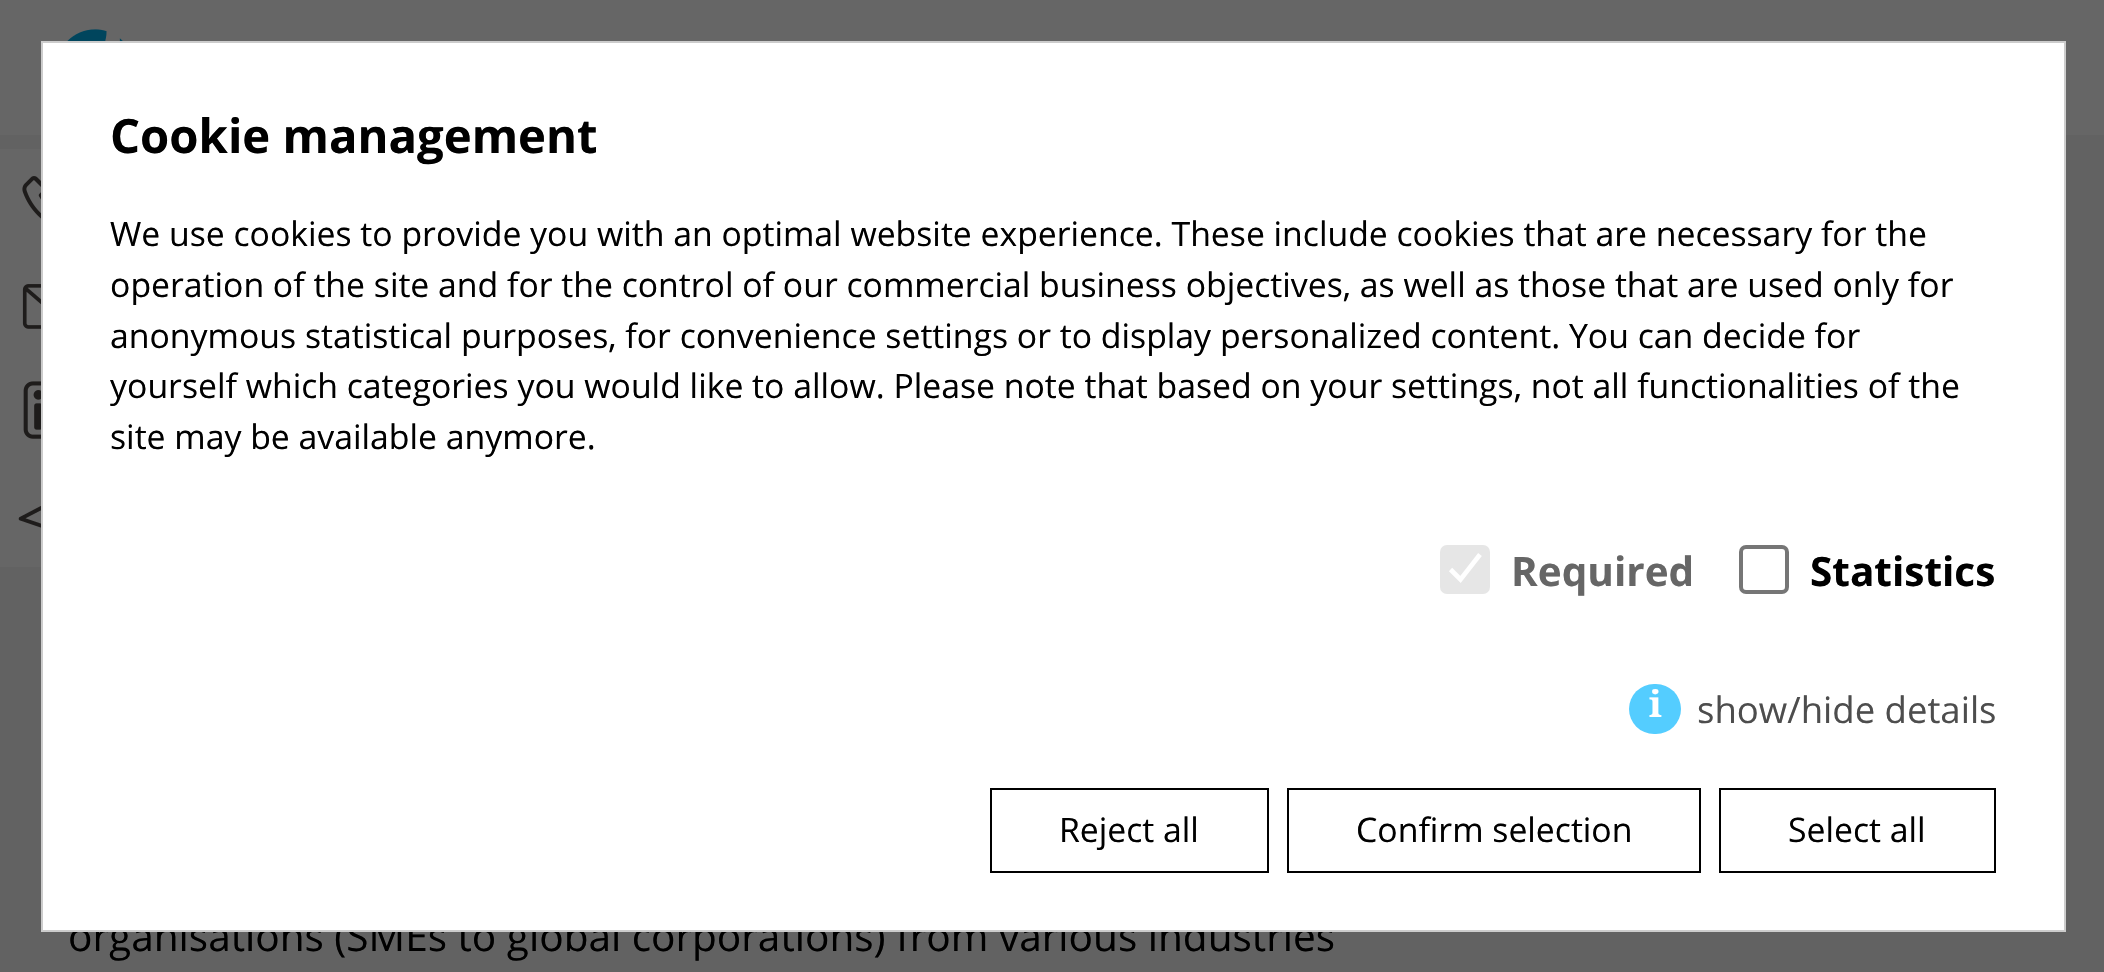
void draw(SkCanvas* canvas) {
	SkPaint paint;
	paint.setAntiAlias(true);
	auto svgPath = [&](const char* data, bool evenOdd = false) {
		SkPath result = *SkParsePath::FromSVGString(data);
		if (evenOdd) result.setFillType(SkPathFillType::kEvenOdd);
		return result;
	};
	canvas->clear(0xff626262);
	paint.setColor(0xff666666);
	canvas->drawRect(SkRect::MakeXYWH(0, 0, 2104, 135), paint);
	canvas->drawImageRect(SkImages::DeferredFromEncodedData(SkData::MakeFromFileName("img1.png")), SkRect::MakeXYWH(67, 29, 56, 12), SkSamplingOptions());
	canvas->drawRect(SkRect::MakeXYWH(0, 149, 41, 418), paint);
	canvas->drawImageRect(SkImages::DeferredFromEncodedData(SkData::MakeFromFileName("img2.png")), SkRect::MakeXYWH(22, 176, 19, 43), SkSamplingOptions());
	canvas->drawImageRect(SkImages::DeferredFromEncodedData(SkData::MakeFromFileName("img3.png")), SkRect::MakeXYWH(22, 284, 19, 45), SkSamplingOptions());
	canvas->drawImageRect(SkImages::DeferredFromEncodedData(SkData::MakeFromFileName("img4.png")), SkRect::MakeXYWH(23, 381, 18, 58), SkSamplingOptions());
	canvas->drawImageRect(SkImages::DeferredFromEncodedData(SkData::MakeFromFileName("img5.png")), SkRect::MakeXYWH(18, 506, 23, 22), SkSamplingOptions());
	SkFont f1(fontMgr->matchFamilyStyle("Open Sans", SkFontStyle::Normal()), 40.5);
	f1.setSubpixel(true);
	paint.setColor(0xff000000);
	canvas->drawString("organisations (SMEs to global corporations) from various industries", 68, 951, f1, paint);
	paint.setColor(0xffffffff);
	canvas->drawRect(SkRect::MakeXYWH(42, 42, 2023, 889), paint);
	paint.setStroke(true);
	paint.setStrokeWidth(2);
	paint.setColor(0xffcccccc);
	canvas->drawRect(SkRect::MakeXYWH(42, 42, 2023, 889), paint);
	SkFont f2(fontMgr->matchFamilyStyle("Open Sans", SkFontStyle::Bold()), 47.25);
	f2.setSubpixel(true);
	paint.setStroke(false);
	paint.setColor(0xff000000);
	canvas->drawString("Cookie management", 110, 153, f2, paint);
	SkFont f3(fontMgr->matchFamilyStyle("Open Sans", SkFontStyle::Normal()), 33.75);
	f3.setSubpixel(true);
	canvas->drawString("We use cookies to provide you with an optimal website experience. These include cookies that are necessary for the", 110, 246, f3, paint);
	canvas->drawString("operation of the site and for the control of our commercial business objectives, as well as those that are used only for", 110, 297, f3, paint);
	canvas->drawString("anonymous statistical purposes, for convenience settings or to display personalized content. You can decide for", 110, 348, f3, paint);
	canvas->drawString("yourself which categories you would like to allow. Please note that based on your settings, not all functionalities of the", 110, 398, f3, paint);
	canvas->drawString("site may be available anymore.", 110, 449, f3, paint);
	paint.setColor(0xffe6e6e6);
	canvas->drawRoundRect(SkRect::MakeXYWH(1440, 545, 50, 49), 7, 7, paint);
	paint.setStroke(true);
	paint.setStrokeWidth(4.7);
	paint.setColor(0xffffffff);
	canvas->drawPath(svgPath("M1450.5 569.5L1460.5 579.5L1480 554.5"), paint);
	SkFont f4(fontMgr->matchFamilyStyle("Open Sans", SkFontStyle::Bold()), 40.5);
	f4.setSubpixel(true);
	paint.setStroke(false);
	paint.setColor(0xff666666);
	canvas->drawString("Required", 1511, 586, f4, paint);
	paint.setStroke(true);
	paint.setStrokeWidth(4);
	paint.setColor(0xff767676);
	canvas->drawRoundRect(SkRect::MakeXYWH(1741, 547, 46, 45), 5, 5, paint);
	paint.setStroke(false);
	paint.setColor(0xff000000);
	canvas->drawString("Statistics", 1810, 586, f4, paint);
	paint.setColor(0xff54cdff);
	canvas->drawRoundRect(SkRect::MakeXYWH(1629, 684, 52, 50), 25, 25, paint);
	SkFont f5(fontMgr->matchFamilyStyle("Noto Serif", SkFontStyle::Bold()), 36.5);
	f5.setSubpixel(true);
	paint.setColor(0xffffffff);
	canvas->drawString("i", 1649, 717, f5, paint);
	SkFont f6(fontMgr->matchFamilyStyle("Open Sans", SkFontStyle::Normal()), 36.5);
	f6.setSubpixel(true);
	paint.setColor(0xff4d4d4d);
	canvas->drawString("show/hide details", 1697, 723, f6, paint);
	paint.setStroke(true);
	paint.setStrokeWidth(2);
	paint.setColor(0xff000000);
	canvas->drawRect(SkRect::MakeXYWH(991, 789, 277, 83), paint);
	paint.setStroke(false);
	canvas->drawString("Reject all", 1059, 842, f3, paint);
	paint.setStroke(true);
	canvas->drawRect(SkRect::MakeXYWH(1288, 789, 412, 83), paint);
	paint.setStroke(false);
	canvas->drawString("Confirm selection", 1356, 842, f3, paint);
	paint.setStroke(true);
	canvas->drawRect(SkRect::MakeXYWH(1720, 789, 275, 83), paint);
	paint.setStroke(false);
	canvas->drawString("Select all", 1788, 842, f3, paint);
}
